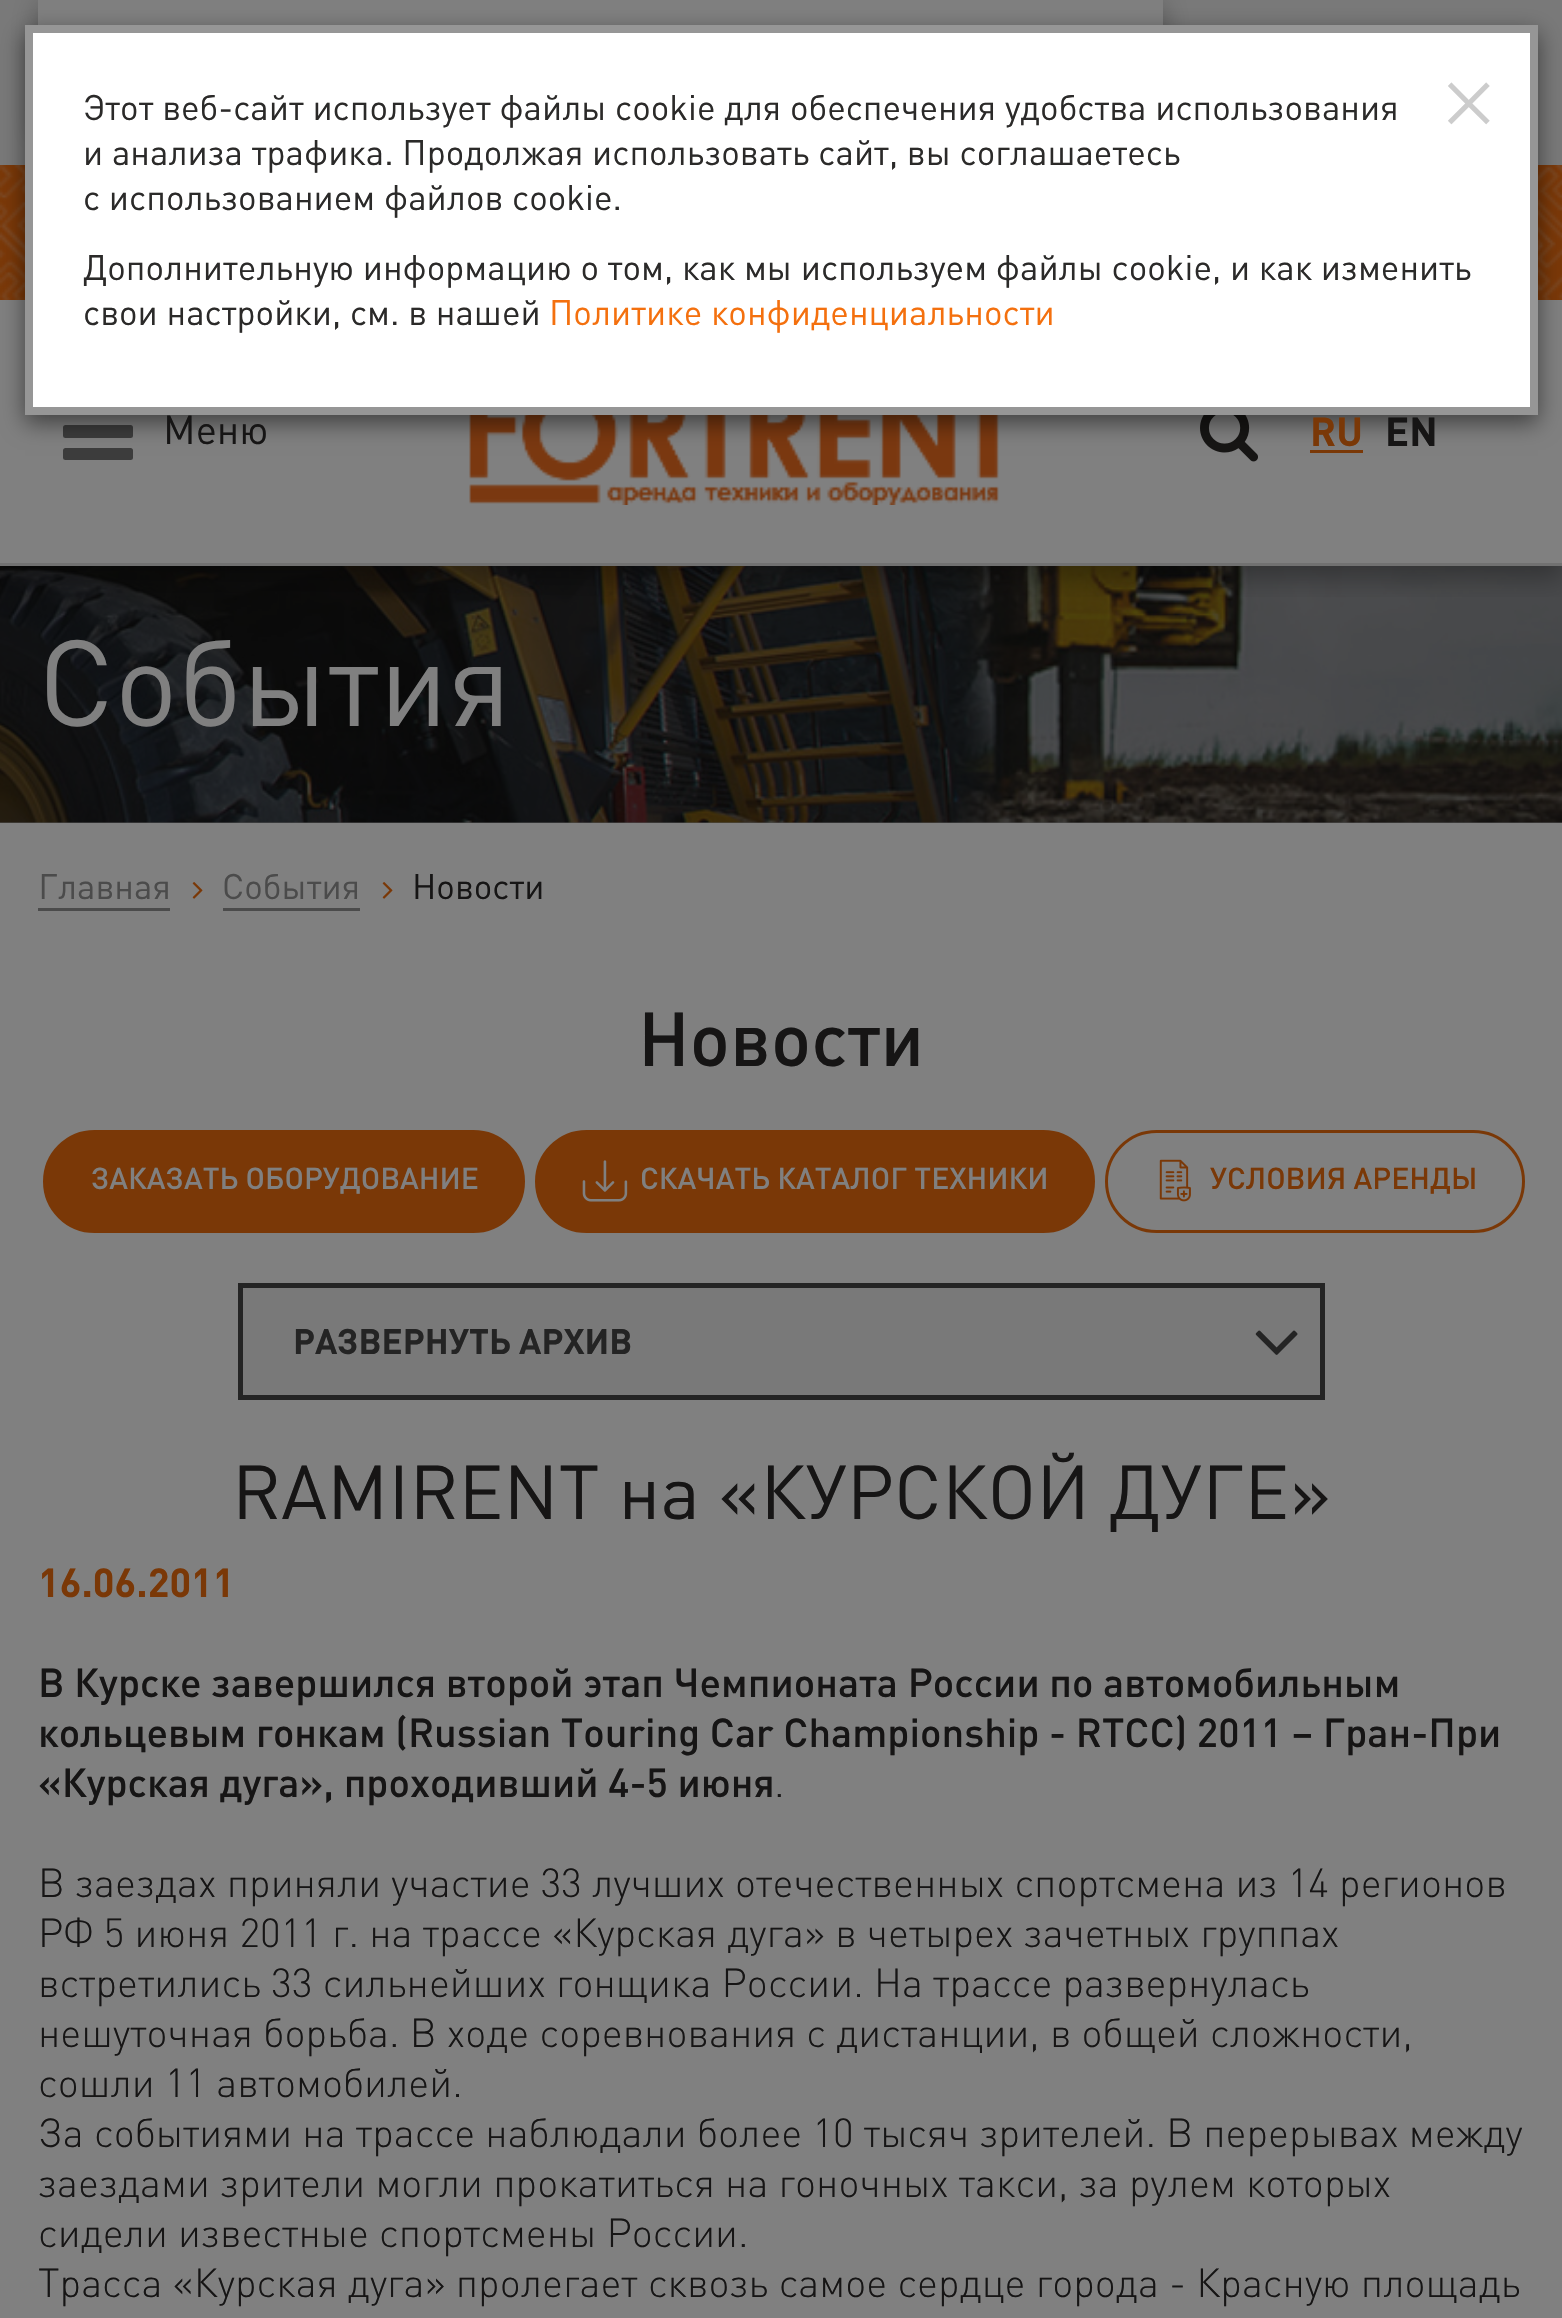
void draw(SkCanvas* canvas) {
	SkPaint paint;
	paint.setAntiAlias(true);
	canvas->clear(0xff808080);
	paint.setColor(0xff505050);
	canvas->drawRect(SkRect::MakeXYWH(0, 822, 1562, 1), paint);
	canvas->drawImageRect(SkImages::DeferredFromEncodedData(SkData::MakeFromFileName("img4.png")), SkRect::MakeXYWH(0, 566, 1562, 257), SkSamplingOptions());
	canvas->save();
	canvas->clipRect(SkRect::MakeXYWH(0, 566, 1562, 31));
	paint.setColor(0x4d000000);
	paint.setMaskFilter(SkMaskFilter::MakeBlur(kNormal_SkBlurStyle, 12.5));
	canvas->drawRect(SkRect::MakeXYWH(0, 13, 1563, 565), paint);
	paint.setMaskFilter(nullptr);
	canvas->restore();
	paint.setColor(0xff797979);
	canvas->drawRect(SkRect::MakeXYWH(0, 0, 1562, 165), paint);
	paint.setColor(0xff7a3808);
	canvas->drawRect(SkRect::MakeXYWH(0, 165, 1562, 135), paint);
	canvas->drawImageRect(SkImages::DeferredFromEncodedData(SkData::MakeFromFileName("img1.png")), SkRect::MakeXYWH(0, 165, 1562, 135), SkSamplingOptions());
	paint.setColor(0x4d000000);
	paint.setMaskFilter(SkMaskFilter::MakeBlur(kNormal_SkBlurStyle, 12.5));
	canvas->drawRect(SkRect::MakeXYWH(38, 5, 1125, 128), paint);
	paint.setMaskFilter(nullptr);
	paint.setColor(0xff808080);
	canvas->drawRect(SkRect::MakeXYWH(38, 0, 1125, 25), paint);
	paint.setColor(0xff3c3c3c);
	canvas->drawRoundRect(SkRect::MakeXYWH(63, 425, 70, 13), 2.5, 2.5, paint);
	canvas->drawRoundRect(SkRect::MakeXYWH(63, 448, 70, 12), 2.5, 2.5, paint);
	canvas->drawImageRect(SkImages::DeferredFromEncodedData(SkData::MakeFromFileName("img2.png")), SkRect::MakeXYWH(469, 415, 530, 90), SkSamplingOptions());
	canvas->drawImageRect(SkImages::DeferredFromEncodedData(SkData::MakeFromFileName("img3.png")), SkRect::MakeXYWH(1200, 415, 58, 47), SkSamplingOptions());
	paint.setColor(0xff7a3807);
	canvas->drawRect(SkRect::MakeXYWH(1310, 450, 53, 3), paint);
	paint.setColor(0x80000000);
	paint.setMaskFilter(SkMaskFilter::MakeBlur(kNormal_SkBlurStyle, 11));
	canvas->drawRect(SkRect::MakeXYWH(25, 33, 1513, 390), paint);
	paint.setMaskFilter(nullptr);
	paint.setColor(0xffffffff);
	canvas->drawRect(SkRect::MakeXYWH(29, 29, 1505, 382), paint);
	paint.setStroke(true);
	paint.setStrokeWidth(8);
	paint.setColor(0xff969696);
	canvas->drawRect(SkRect::MakeXYWH(29, 29, 1505, 382), paint);
	SkFont f1(fontMgr->matchFamilyStyle("DIN", SkFontStyle(300, SkFontStyle::kNormal_Width, SkFontStyle::kUpright_Slant)), 112);
	f1.setSubpixel(true);
	paint.setStroke(false);
	paint.setColor(0xffcccccc);
	canvas->drawString("×", 1440, 133, f1, paint);
	SkFont f2(fontMgr->matchFamilyStyle("DIN", SkFontStyle::Normal()), 35);
	f2.setSubpixel(true);
	paint.setColor(0xff2b2a29);
	canvas->drawString("Этот веб-сайт использует файлы cookie для обеспечения удобства использования", 83, 120, f2, paint);
	canvas->drawString("и анализа трафика. Продолжая использовать сайт, вы соглашаетесь", 83, 165, f2, paint);
	canvas->drawString("с использованием файлов cookie.", 83, 210, f2, paint);
	canvas->drawString("Дополнительную информацию о том, как мы используем файлы cookie, и как изменить", 83, 280, f2, paint);
	canvas->drawString("свои настройки, см. в нашей", 83, 325, f2, paint);
	paint.setColor(0xfff4700e);
	canvas->drawString("Политике конфиденциальности", 549, 325, f2, paint);
	paint.setColor(0xff717171);
	canvas->drawRect(SkRect::MakeXYWH(0, 563, 1562, 3), paint);
	SkFont f3(fontMgr->matchFamilyStyle("DIN", SkFontStyle::Normal()), 40);
	f3.setSubpixel(true);
	paint.setColor(0xff161515);
	canvas->drawString("Меню", 163, 444, f3, paint);
	SkFont f4(fontMgr->matchFamilyStyle("DIN", SkFontStyle::Bold()), 40);
	f4.setSubpixel(true);
	paint.setColor(0xff7a3807);
	canvas->drawString("RU", 1310, 446, f4, paint);
	paint.setColor(0xff161515);
	canvas->drawString("EN", 1385, 446, f4, paint);
	SkFont f5(fontMgr->matchFamilyStyle("DIN", SkFontStyle::Normal()), 120);
	f5.setSubpixel(true);
	paint.setColor(0xff808080);
	canvas->drawString("События", 38, 726, f5, paint);
	paint.setColor(0xff4b4b4b);
	canvas->drawString("Главная", 38, 899, f2, paint);
	canvas->drawRect(SkRect::MakeXYWH(38, 908, 132, 3), paint);
	canvas->drawImageRect(SkImages::DeferredFromEncodedData(SkData::MakeFromFileName("img5.png")), SkRect::MakeXYWH(192, 882, 11, 17), SkSamplingOptions());
	canvas->drawString("События", 222, 899, f2, paint);
	canvas->drawRect(SkRect::MakeXYWH(223, 908, 137, 3), paint);
	canvas->drawImageRect(SkImages::DeferredFromEncodedData(SkData::MakeFromFileName("img5.png")), SkRect::MakeXYWH(382, 882, 11, 17), SkSamplingOptions());
	paint.setColor(0xff161515);
	canvas->drawString("Новости", 412, 899, f2, paint);
	SkFont f6(fontMgr->matchFamilyStyle("DIN", SkFontStyle(500, SkFontStyle::kNormal_Width, SkFontStyle::kUpright_Slant)), 75);
	f6.setSubpixel(true);
	canvas->drawString("Новости", 638, 1066, f6, paint);
	paint.setColor(0xff7a3807);
	canvas->drawRoundRect(SkRect::MakeXYWH(44.5, 1131.5, 479, 100), 50, 50, paint);
	paint.setStroke(true);
	paint.setStrokeWidth(3);
	canvas->drawRoundRect(SkRect::MakeXYWH(44.5, 1131.5, 479, 100), 50, 50, paint);
	SkFont f7(fontMgr->matchFamilyStyle("DIN", SkFontStyle(500, SkFontStyle::kNormal_Width, SkFontStyle::kUpright_Slant)), 30);
	f7.setSubpixel(true);
	paint.setStroke(false);
	paint.setColor(0xff808080);
	canvas->drawString("ЗАКАЗАТЬ ОБОРУДОВАНИЕ", 91, 1189, f7, paint);
	paint.setColor(0xff7a3807);
	canvas->drawRoundRect(SkRect::MakeXYWH(536.5, 1131.5, 557, 100), 50, 50, paint);
	paint.setStroke(true);
	canvas->drawRoundRect(SkRect::MakeXYWH(536.5, 1131.5, 557, 100), 50, 50, paint);
	canvas->drawImageRect(SkImages::DeferredFromEncodedData(SkData::MakeFromFileName("img6.png")), SkRect::MakeXYWH(582, 1160, 46, 42), SkSamplingOptions());
	paint.setStroke(false);
	paint.setColor(0xff808080);
	canvas->drawString("СКАЧАТЬ КАТАЛОГ ТЕХНИКИ", 640, 1189, f7, paint);
	paint.setStroke(true);
	paint.setColor(0xff7a3807);
	canvas->drawRoundRect(SkRect::MakeXYWH(1106.5, 1131.5, 417, 100), 50, 50, paint);
	canvas->drawImageRect(SkImages::DeferredFromEncodedData(SkData::MakeFromFileName("img7.png")), SkRect::MakeXYWH(1159, 1159, 32, 43), SkSamplingOptions());
	paint.setStroke(false);
	canvas->drawString("УСЛОВИЯ АРЕНДЫ", 1210, 1189, f7, paint);
	paint.setColor(0xff797979);
	canvas->drawRect(SkRect::MakeXYWH(240.5, 1285.5, 1082, 112), paint);
	paint.setStroke(true);
	paint.setStrokeWidth(5);
	paint.setColor(0xff242424);
	canvas->drawRect(SkRect::MakeXYWH(240.5, 1285.5, 1082, 112), paint);
	SkFont f8(fontMgr->matchFamilyStyle("DIN", SkFontStyle::Bold()), 35);
	f8.setSubpixel(true);
	paint.setStroke(false);
	canvas->drawString("РАЗВЕРНУТЬ АРХИВ", 293, 1354, f8, paint);
	canvas->drawImageRect(SkImages::DeferredFromEncodedData(SkData::MakeFromFileName("img8.png")), SkRect::MakeXYWH(1255, 1330, 43, 25), SkSamplingOptions());
	SkFont f9(fontMgr->matchFamilyStyle("DIN", SkFontStyle::Normal()), 75);
	f9.setSubpixel(true);
	paint.setColor(0xff161515);
	canvas->drawString("RAMIRENT на «КУРСКОЙ ДУГЕ»", 232, 1519, f9, paint);
	paint.setColor(0xff7a3807);
	canvas->drawString("16.06.2011", 38, 1597, f4, paint);
	SkFont f10(fontMgr->matchFamilyStyle("DIN", SkFontStyle(500, SkFontStyle::kNormal_Width, SkFontStyle::kUpright_Slant)), 40);
	f10.setSubpixel(true);
	paint.setColor(0xff161515);
	canvas->drawString("В Курске завершился второй этап Чемпионата России по автомобильным", 38, 1697, f10, paint);
	canvas->drawString("кольцевым гонкам (Russian Touring Car Championship - RTCC) 2011 – Гран-При", 38, 1747, f10, paint);
	canvas->drawString("«Курская дуга», проходивший 4-5 июня", 38, 1797, f10, paint);
	SkFont f11(fontMgr->matchFamilyStyle("DIN", SkFontStyle(300, SkFontStyle::kNormal_Width, SkFontStyle::kUpright_Slant)), 40);
	f11.setSubpixel(true);
	canvas->drawString(".", 774, 1797, f11, paint);
	canvas->drawString("В заездах приняли участие 33 лучших отечественных спортсмена из 14 регионов", 38, 1897, f11, paint);
	canvas->drawString("РФ 5 июня 2011 г. на трассе «Курская дуга» в четырех зачетных группах", 38, 1947, f11, paint);
	canvas->drawString("встретились 33 сильнейших гонщика России. На трассе развернулась", 38, 1997, f11, paint);
	canvas->drawString("нешуточная борьба. В ходе соревнования с дистанции, в общей сложности,", 38, 2047, f11, paint);
	canvas->drawString("сошли 11 автомобилей.", 38, 2097, f11, paint);
	canvas->drawString("За событиями на трассе наблюдали более 10 тысяч зрителей. В перерывах между", 38, 2147, f11, paint);
	canvas->drawString("заездами зрители могли прокатиться на гоночных такси, за рулем которых", 38, 2197, f11, paint);
	canvas->drawString("сидели известные спортсмены России.", 38, 2247, f11, paint);
	canvas->drawString("Трасса «Курская дуга» пролегает сквозь самое сердце города - Красную площадь", 38, 2297, f11, paint);
}
